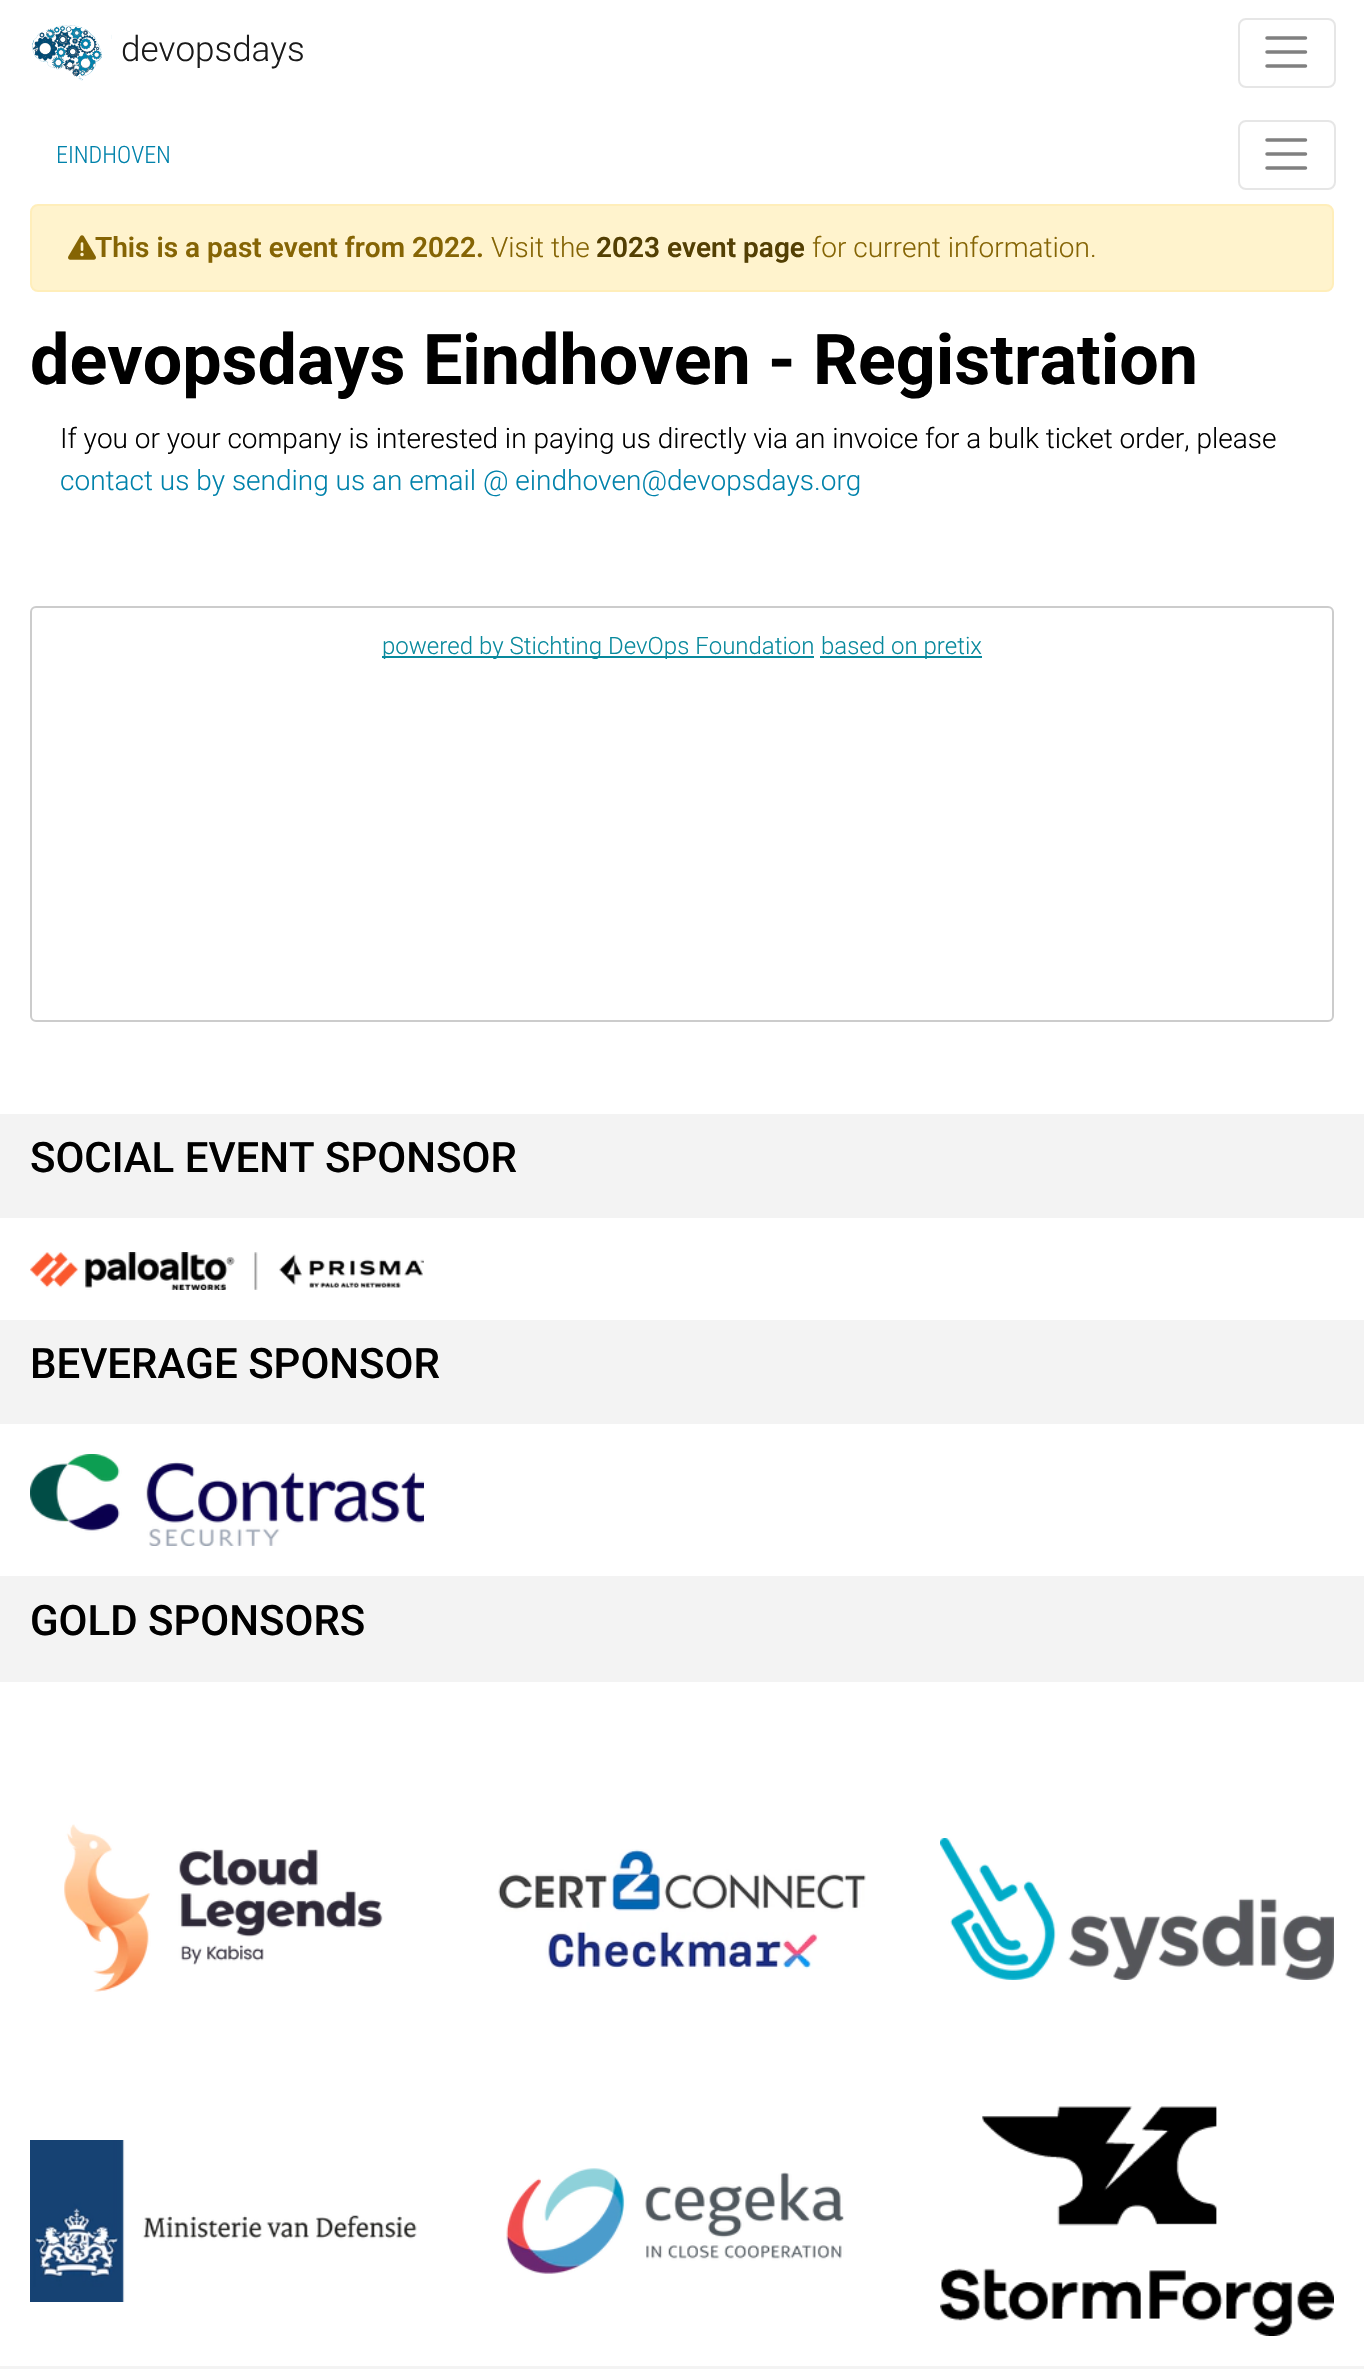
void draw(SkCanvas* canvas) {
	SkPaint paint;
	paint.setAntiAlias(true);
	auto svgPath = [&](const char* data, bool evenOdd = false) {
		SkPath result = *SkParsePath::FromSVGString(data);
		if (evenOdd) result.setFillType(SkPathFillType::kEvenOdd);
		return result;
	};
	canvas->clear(0xffffffff);
	canvas->drawImageRect(SkImages::DeferredFromEncodedData(SkData::MakeFromFileName("img1.png")), SkRect::MakeXYWH(32, 25, 80, 56), SkSamplingOptions());
	SkFont f1(fontMgr->matchFamilyStyle("Roboto", SkFontStyle(300, SkFontStyle::kNormal_Width, SkFontStyle::kUpright_Slant)), 35);
	f1.setSubpixel(true);
	paint.setColor(0xff1a1a1a);
	canvas->drawString("devopsdays", 121, 61, f1, paint);
	paint.setStroke(true);
	paint.setStrokeWidth(2);
	paint.setColor(0xffe6e6e6);
	canvas->drawRoundRect(SkRect::MakeXYWH(1239, 19, 96, 68), 7, 7, paint);
	paint.setStrokeWidth(3.5);
	paint.setStrokeCap(SkPaint::kRound_Cap);
	paint.setColor(0xff808080);
	canvas->drawPath(svgPath("M1267 38H1305.5M1267 52H1305.5M1267 66H1305.5"), paint);
	SkFont f2(fontMgr->matchFamilyStyle("Roboto Condensed", SkFontStyle(300, SkFontStyle::kNormal_Width, SkFontStyle::kUpright_Slant)), 24);
	f2.setSubpixel(true);
	paint.setStroke(false);
	paint.setColor(0xff0082ab);
	canvas->drawString("EINDHOVEN", 56, 163, f2, paint);
	paint.setStroke(true);
	paint.setStrokeWidth(2);
	paint.setStrokeCap(SkPaint::kButt_Cap);
	paint.setColor(0xffe6e6e6);
	canvas->drawRoundRect(SkRect::MakeXYWH(1239, 121, 96, 68), 7, 7, paint);
	paint.setStrokeWidth(3.5);
	paint.setStrokeCap(SkPaint::kRound_Cap);
	paint.setColor(0xff808080);
	canvas->drawPath(svgPath("M1267 140H1305.5M1267 154H1305.5M1267 168H1305.5"), paint);
	paint.setStroke(false);
	paint.setColor(0xfffff3cd);
	canvas->drawRoundRect(SkRect::MakeXYWH(31, 205, 1302, 86), 7, 7, paint);
	paint.setStroke(true);
	paint.setStrokeWidth(2);
	paint.setStrokeCap(SkPaint::kButt_Cap);
	paint.setColor(0xffffeeba);
	canvas->drawRoundRect(SkRect::MakeXYWH(31, 205, 1302, 86), 7, 7, paint);
	canvas->drawImageRect(SkImages::DeferredFromEncodedData(SkData::MakeFromFileName("img2.png")), SkRect::MakeXYWH(68, 235, 28, 25), SkSamplingOptions());
	SkFont f3(fontMgr->matchFamilyStyle("Roboto", SkFontStyle(600, SkFontStyle::kNormal_Width, SkFontStyle::kUpright_Slant)), 28);
	f3.setSubpixel(true);
	paint.setStroke(false);
	paint.setColor(0xff856404);
	canvas->drawString("This is a past event from 2022.", 95, 257, f3, paint);
	SkFont f4(fontMgr->matchFamilyStyle("Roboto", SkFontStyle(300, SkFontStyle::kNormal_Width, SkFontStyle::kUpright_Slant)), 28);
	f4.setSubpixel(true);
	canvas->drawString("Visit the", 491, 257, f4, paint);
	paint.setColor(0xff533f03);
	canvas->drawString("2023 event page", 596, 257, f3, paint);
	paint.setColor(0xff856404);
	canvas->drawString("for current information.", 812, 257, f4, paint);
	SkFont f5(fontMgr->matchFamilyStyle("Roboto", SkFontStyle::Bold()), 70);
	f5.setSubpixel(true);
	paint.setColor(0xff000000);
	canvas->drawString("devopsdays Eindhoven - Registration", 30, 384, f5, paint);
	canvas->drawString("If you or your company is interested in paying us directly via an invoice for a bulk ticket order, please", 60, 448, f4, paint);
	paint.setColor(0xff0082ab);
	canvas->drawString("contact us by sending us an email @ eindhoven@devopsdays.org", 60, 490, f4, paint);
	paint.setStroke(true);
	paint.setColor(0xffcccccc);
	canvas->drawRoundRect(SkRect::MakeXYWH(31, 607, 1302, 414), 5, 5, paint);
	paint.setStroke(false);
	paint.setColor(0xff08899d);
	canvas->drawRect(SkRect::MakeXYWH(382, 656, 432, 2), paint);
	SkFont f6(fontMgr->matchFamilyStyle("Roboto", SkFontStyle(300, SkFontStyle::kNormal_Width, SkFontStyle::kUpright_Slant)), 24);
	f6.setSubpixel(true);
	canvas->drawString("powered by Stichting DevOps Foundation", 382, 654, f6, paint);
	canvas->drawRect(SkRect::MakeXYWH(820, 656, 162, 2), paint);
	canvas->drawString("based on pretix", 821, 654, f6, paint);
	paint.setColor(0xfff3f3f3);
	canvas->drawRect(SkRect::MakeXYWH(0, 1114, 1364, 104), paint);
	SkFont f7(fontMgr->matchFamilyStyle("Roboto", SkFontStyle(500, SkFontStyle::kNormal_Width, SkFontStyle::kUpright_Slant)), 42);
	f7.setSubpixel(true);
	paint.setColor(0xff000000);
	canvas->drawString("SOCIAL EVENT SPONSOR", 30, 1172, f7, paint);
	canvas->drawImageRect(SkImages::DeferredFromEncodedData(SkData::MakeFromFileName("img3.png")), SkRect::MakeXYWH(30, 1252, 394, 38), SkSamplingOptions());
	paint.setColor(0xfff3f3f3);
	canvas->drawRect(SkRect::MakeXYWH(0, 1320, 1364, 104), paint);
	paint.setColor(0xff000000);
	canvas->drawString("BEVERAGE SPONSOR", 30, 1378, f7, paint);
	canvas->drawImageRect(SkImages::DeferredFromEncodedData(SkData::MakeFromFileName("img4.png")), SkRect::MakeXYWH(30, 1454, 394, 92), SkSamplingOptions());
	paint.setColor(0xfff3f3f3);
	canvas->drawRect(SkRect::MakeXYWH(0, 1576, 1364, 106), paint);
	paint.setColor(0xff000000);
	canvas->drawString("GOLD SPONSORS", 30, 1635, f7, paint);
	canvas->drawImageRect(SkImages::DeferredFromEncodedData(SkData::MakeFromFileName("img5.png")), SkRect::MakeXYWH(64, 1824, 319, 168), SkSamplingOptions());
	canvas->drawImageRect(SkImages::DeferredFromEncodedData(SkData::MakeFromFileName("img6.png")), SkRect::MakeXYWH(498, 1849, 368, 120), SkSamplingOptions());
	canvas->drawImageRect(SkImages::DeferredFromEncodedData(SkData::MakeFromFileName("img7.png")), SkRect::MakeXYWH(940, 1838, 394, 142), SkSamplingOptions());
	canvas->drawImageRect(SkImages::DeferredFromEncodedData(SkData::MakeFromFileName("img8.png")), SkRect::MakeXYWH(30, 2140, 387, 162), SkSamplingOptions());
	canvas->drawImageRect(SkImages::DeferredFromEncodedData(SkData::MakeFromFileName("img9.png")), SkRect::MakeXYWH(506, 2168, 338, 106), SkSamplingOptions());
	canvas->drawImageRect(SkImages::DeferredFromEncodedData(SkData::MakeFromFileName("img10.png")), SkRect::MakeXYWH(940, 2106, 394, 230), SkSamplingOptions());
	paint.setColor(0xfff3f3f3);
	canvas->drawRect(SkRect::MakeXYWH(0, 2366, 1364, 3), paint);
}
